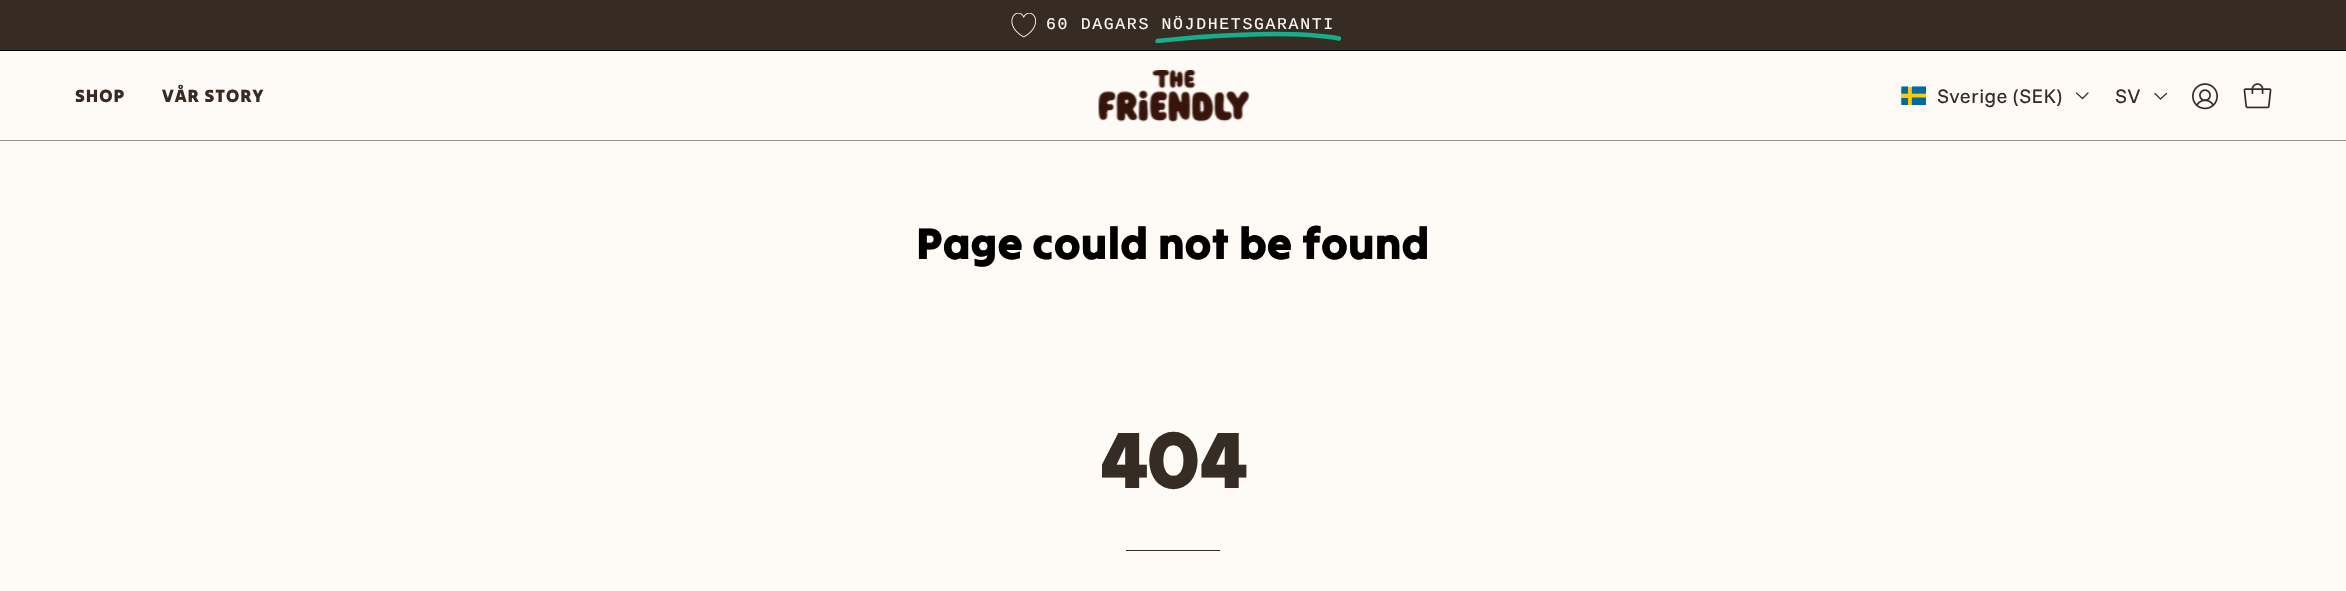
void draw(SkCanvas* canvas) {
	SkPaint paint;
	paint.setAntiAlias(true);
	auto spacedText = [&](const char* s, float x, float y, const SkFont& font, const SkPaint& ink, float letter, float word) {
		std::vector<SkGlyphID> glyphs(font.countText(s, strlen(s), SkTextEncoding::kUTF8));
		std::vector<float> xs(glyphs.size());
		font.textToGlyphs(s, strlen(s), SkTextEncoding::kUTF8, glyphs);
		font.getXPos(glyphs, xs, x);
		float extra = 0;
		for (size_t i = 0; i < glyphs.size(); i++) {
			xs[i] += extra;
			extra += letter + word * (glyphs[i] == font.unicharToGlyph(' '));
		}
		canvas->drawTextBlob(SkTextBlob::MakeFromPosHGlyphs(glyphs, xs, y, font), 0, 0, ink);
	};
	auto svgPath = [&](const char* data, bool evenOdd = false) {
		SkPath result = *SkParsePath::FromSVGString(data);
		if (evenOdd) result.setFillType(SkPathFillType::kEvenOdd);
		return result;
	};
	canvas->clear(0xfffefaf5);
	paint.setColor(0xff372c23);
	canvas->drawRect(SkRect::MakeXYWH(0, 0, 2346, 50), paint);
	paint.setColor(0xff000000);
	canvas->drawRect(SkRect::MakeXYWH(0, 50, 2346, 1), paint);
	canvas->drawImageRect(SkImages::DeferredFromEncodedData(SkData::MakeFromFileName("img1.png")), SkRect::MakeXYWH(1011, 13, 25, 25), SkSamplingOptions());
	SkFont f1(fontMgr->matchFamilyStyle("Liberation Mono", SkFontStyle::Normal()), 16.5);
	f1.setSubpixel(true);
	paint.setColor(0xfffefaf5);
	spacedText("60 DAGARS NÖJDHETSGARANTI", 1046, 29, f1, paint, 1.65, 0);
	canvas->save();
	canvas->clipRect(SkRect::MakeXYWH(1155, 31, 186, 12));
	paint.setStroke(true);
	paint.setStrokeWidth(4.5);
	paint.setStrokeCap(SkPaint::kRound_Cap);
	paint.setStrokeJoin(SkPaint::kRound_Join);
	paint.setColor(0xff15ad8b);
	canvas->drawPath(svgPath("M1157.5 41C1196 36.5 1285.5 29.5 1339 38.5"), paint);
	canvas->restore();
	canvas->drawImageRect(SkImages::DeferredFromEncodedData(SkData::MakeFromFileName("img2.png")), SkRect::MakeXYWH(1098, 70, 152, 52), SkSamplingOptions());
	SkFont f2(fontMgr->matchFamilyStyle("Tilt Warp", SkFontStyle::Normal()), 18);
	f2.setSubpixel(true);
	paint.setStroke(false);
	paint.setColor(0xff372c23);
	spacedText("SHOP", 75, 102, f2, paint, 1, 0);
	spacedText("VÅR STORY", 162, 102, f2, paint, 1, 0);
	canvas->drawImageRect(SkImages::DeferredFromEncodedData(SkData::MakeFromFileName("img3.png")), SkRect::MakeXYWH(1901, 86, 25, 19), SkSamplingOptions());
	SkFont f3(fontMgr->matchFamilyStyle("Funnel Sans", SkFontStyle(300, SkFontStyle::kNormal_Width, SkFontStyle::kUpright_Slant)), 20);
	f3.setSubpixel(true);
	spacedText("Sverige (SEK)", 1937, 103, f3, paint, 0.4, 0);
	paint.setStroke(true);
	paint.setStrokeWidth(1.2);
	canvas->drawPath(svgPath("M2088 93L2082.5 98.5L2076.5 93"), paint);
	paint.setStroke(false);
	spacedText("SV", 2115, 103, f3, paint, 0.4, 0);
	paint.setStroke(true);
	canvas->drawPath(svgPath("M2166.5 93.5L2160.5 99L2155 93.5"), paint);
	canvas->drawImageRect(SkImages::DeferredFromEncodedData(SkData::MakeFromFileName("img4.png")), SkRect::MakeXYWH(2192, 83, 26, 27), SkSamplingOptions());
	canvas->drawImageRect(SkImages::DeferredFromEncodedData(SkData::MakeFromFileName("img5.png")), SkRect::MakeXYWH(2243, 83, 29, 26), SkSamplingOptions());
	paint.setStroke(false);
	paint.setColor(0xff9b938c);
	canvas->drawRect(SkRect::MakeXYWH(0, 140, 2346, 1), paint);
	SkFont f4(fontMgr->matchFamilyStyle("Tilt Warp", SkFontStyle::Normal()), 45);
	f4.setSubpixel(true);
	paint.setColor(0xff000000);
	canvas->drawString("Page could not be found", 916, 259, f4, paint);
	SkFont f5(fontMgr->matchFamilyStyle("Tilt Warp", SkFontStyle::Normal()), 81);
	f5.setSubpixel(true);
	paint.setColor(0xff372c23);
	canvas->drawString("404", 1100, 488, f5, paint);
	canvas->drawRect(SkRect::MakeXYWH(1126, 550, 94, 1), paint);
}
